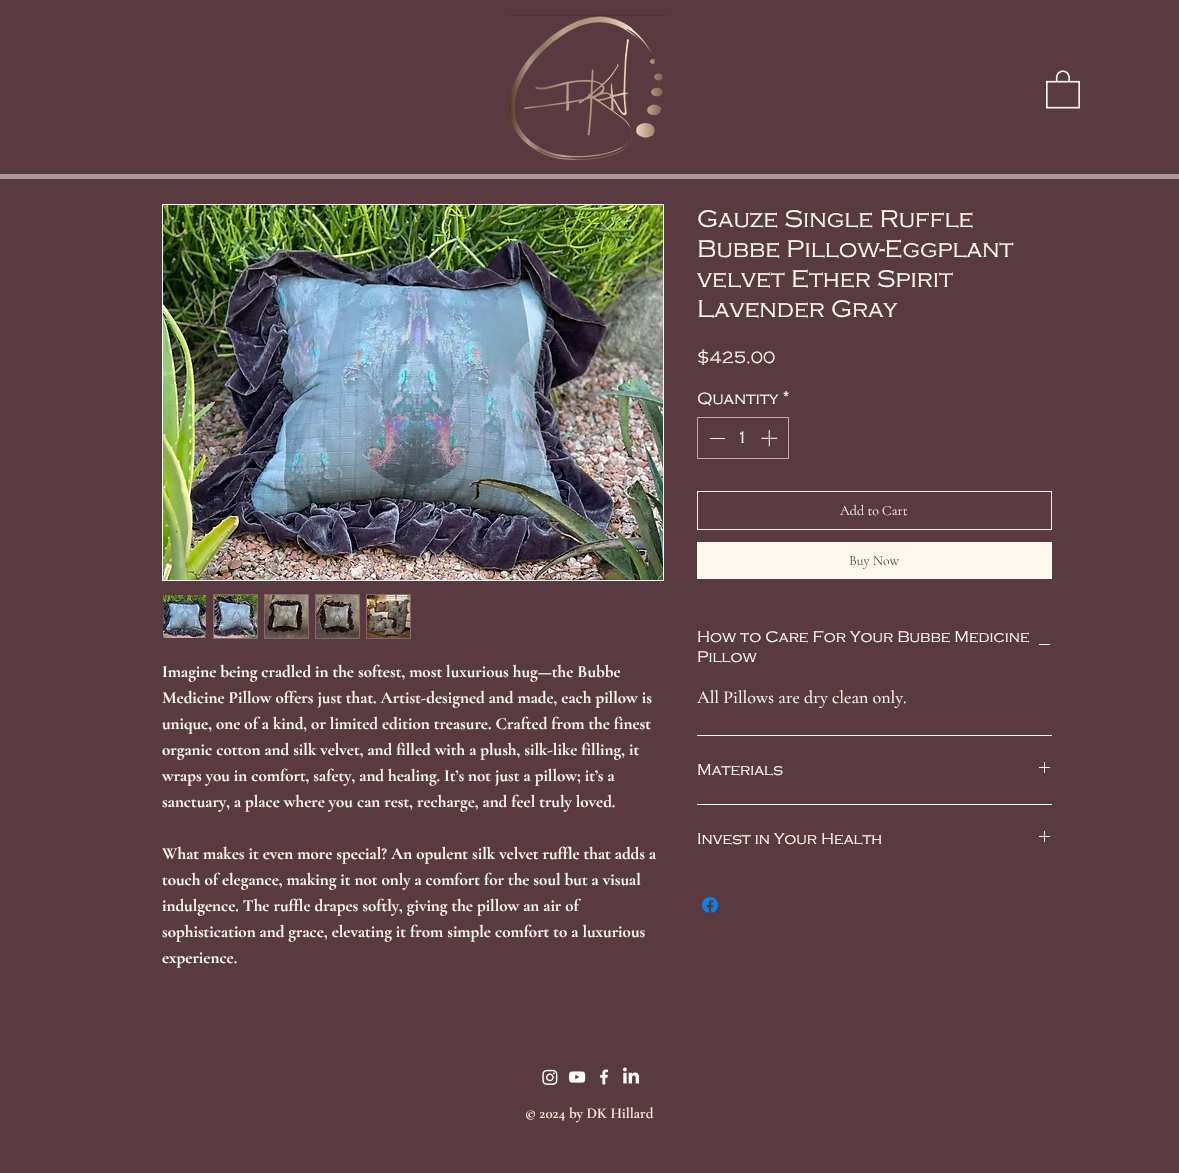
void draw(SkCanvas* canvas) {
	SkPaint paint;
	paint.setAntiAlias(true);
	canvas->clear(0xff583a40);
	canvas->drawImageRect(SkImages::DeferredFromEncodedData(SkData::MakeFromFileName("img1.png")), SkRect::MakeXYWH(508, 15, 159, 145), SkSamplingOptions());
	canvas->drawImageRect(SkImages::DeferredFromEncodedData(SkData::MakeFromFileName("img2.png")), SkRect::MakeXYWH(1046, 70, 34, 39), SkSamplingOptions());
	paint.setColor(0xffaa9997);
	canvas->drawRect(SkRect::MakeXYWH(0, 174, 1179, 5), paint);
	paint.setStroke(true);
	paint.setStrokeWidth(1);
	paint.setColor(0xfff9f9f9);
	canvas->drawRect(SkRect::MakeXYWH(162.5, 204.5, 501, 376), paint);
	canvas->drawImageRect(SkImages::DeferredFromEncodedData(SkData::MakeFromFileName("img3.png")), SkRect::MakeXYWH(163, 205, 500, 375), SkSamplingOptions());
	canvas->drawImageRect(SkImages::DeferredFromEncodedData(SkData::MakeFromFileName("img4.png")), SkRect::MakeXYWH(163, 595, 43, 43), SkSamplingOptions());
	paint.setColor(0xff816a6b);
	canvas->drawRect(SkRect::MakeXYWH(213.5, 594.5, 44, 44), paint);
	canvas->drawImageRect(SkImages::DeferredFromEncodedData(SkData::MakeFromFileName("img5.png")), SkRect::MakeXYWH(214, 595, 43, 43), SkSamplingOptions());
	canvas->drawRect(SkRect::MakeXYWH(264.5, 594.5, 44, 44), paint);
	canvas->drawImageRect(SkImages::DeferredFromEncodedData(SkData::MakeFromFileName("img6.png")), SkRect::MakeXYWH(265, 595, 43, 43), SkSamplingOptions());
	canvas->drawRect(SkRect::MakeXYWH(315.5, 594.5, 44, 44), paint);
	canvas->drawImageRect(SkImages::DeferredFromEncodedData(SkData::MakeFromFileName("img7.png")), SkRect::MakeXYWH(316, 595, 43, 43), SkSamplingOptions());
	canvas->drawRect(SkRect::MakeXYWH(366.5, 594.5, 44, 44), paint);
	canvas->drawImageRect(SkImages::DeferredFromEncodedData(SkData::MakeFromFileName("img8.png")), SkRect::MakeXYWH(367, 595, 43, 43), SkSamplingOptions());
	SkFont f1(fontMgr->matchFamilyStyle("Cormorant Garamond", SkFontStyle::Bold()), 17);
	f1.setSubpixel(true);
	paint.setStroke(false);
	paint.setColor(0xfffcf8ed);
	canvas->drawString("Imagine being cradled in the softest, most luxurious hug—the Bubbe", 162, 677, f1, paint);
	canvas->drawString("Medicine Pillow offers just that. Artist-designed and made, each pillow is", 162, 703, f1, paint);
	canvas->drawString("unique, one of a kind, or limited edition treasure. Crafted from the finest", 162, 729, f1, paint);
	canvas->drawString("organic cotton and silk velvet, and filled with a plush, silk-like filling, it", 162, 755, f1, paint);
	canvas->drawString("wraps you in comfort, safety, and healing. It’s not just a pillow; it’s a", 162, 781, f1, paint);
	canvas->drawString("sanctuary, a place where you can rest, recharge, and feel truly loved.", 162, 807, f1, paint);
	canvas->drawString("What makes it even more special? An opulent silk velvet ruffle that adds a", 162, 859, f1, paint);
	canvas->drawString("touch of elegance, making it not only a comfort for the soul but a visual", 162, 885, f1, paint);
	canvas->drawString("indulgence. The ruffle drapes softly, giving the pillow an air of", 162, 911, f1, paint);
	canvas->drawString("sophistication and grace, elevating it from simple comfort to a luxurious", 162, 937, f1, paint);
	canvas->drawString("experience.", 162, 963, f1, paint);
	SkFont f2(fontMgr->matchFamilyStyle("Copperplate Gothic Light", SkFontStyle(300, SkFontStyle::kNormal_Width, SkFontStyle::kUpright_Slant)), 25);
	f2.setSubpixel(true);
	canvas->drawString("Gauze Single Ruffle", 697, 227, f2, paint);
	canvas->drawString("Bubbe Pillow-Eggplant", 697, 257, f2, paint);
	canvas->drawString("velvet Ether Spirit", 697, 287, f2, paint);
	canvas->drawString("Lavender Gray", 697, 317, f2, paint);
	SkFont f3(fontMgr->matchFamilyStyle("Copperplate Gothic Light", SkFontStyle(300, SkFontStyle::kNormal_Width, SkFontStyle::kUpright_Slant)), 17);
	f3.setSubpixel(true);
	canvas->drawString("$425.00", 697, 363, f3, paint);
	canvas->drawString("Quantity *", 697, 404, f3, paint);
	paint.setStroke(true);
	paint.setColor(0xffbaaca8);
	canvas->drawRect(SkRect::MakeXYWH(697.5, 417.5, 91, 41), paint);
	paint.setStroke(false);
	paint.setColor(0xfffcf8ed);
	canvas->drawRect(SkRect::MakeXYWH(710, 438, 15, 1), paint);
	canvas->drawString("1", 736, 443, f3, paint);
	canvas->drawImageRect(SkImages::DeferredFromEncodedData(SkData::MakeFromFileName("img9.png")), SkRect::MakeXYWH(761, 430, 17, 17), SkSamplingOptions());
	paint.setStroke(true);
	canvas->drawRect(SkRect::MakeXYWH(697.5, 491.5, 354, 38), paint);
	SkFont f4(fontMgr->matchFamilyStyle("Cormorant Garamond", SkFontStyle(300, SkFontStyle::kNormal_Width, SkFontStyle::kUpright_Slant)), 14);
	f4.setSubpixel(true);
	paint.setStroke(false);
	canvas->drawString("Add to Cart", 840, 515, f4, paint);
	canvas->drawRect(SkRect::MakeXYWH(697, 542, 355, 37), paint);
	paint.setColor(0xff583a40);
	canvas->drawString("Buy Now", 849, 565, f4, paint);
	paint.setColor(0xffffffff);
	canvas->drawRect(SkRect::MakeXYWH(697, 735, 355, 1), paint);
	SkFont f5(fontMgr->matchFamilyStyle("Copperplate Gothic Light", SkFontStyle(300, SkFontStyle::kNormal_Width, SkFontStyle::kUpright_Slant)), 16);
	f5.setSubpixel(true);
	paint.setColor(0xfffcf8ed);
	canvas->drawString("How to Care For Your Bubbe Medicine", 697, 642, f5, paint);
	canvas->drawString("Pillow", 697, 662, f5, paint);
	canvas->drawRect(SkRect::MakeXYWH(1039, 644, 11, 1), paint);
	SkFont f6(fontMgr->matchFamilyStyle("Cormorant Garamond", SkFontStyle(500, SkFontStyle::kNormal_Width, SkFontStyle::kUpright_Slant)), 18);
	f6.setSubpixel(true);
	canvas->drawString("All Pillows are dry clean only.", 697, 703, f6, paint);
	paint.setColor(0xffffffff);
	canvas->drawRect(SkRect::MakeXYWH(697, 804, 355, 1), paint);
	paint.setColor(0xfffcf8ed);
	canvas->drawString("Materials", 697, 775, f5, paint);
	canvas->drawImageRect(SkImages::DeferredFromEncodedData(SkData::MakeFromFileName("img10.png")), SkRect::MakeXYWH(1039, 762, 11, 11), SkSamplingOptions());
	canvas->drawString("Invest in Your Health", 697, 844, f5, paint);
	canvas->drawImageRect(SkImages::DeferredFromEncodedData(SkData::MakeFromFileName("img10.png")), SkRect::MakeXYWH(1039, 831, 11, 11), SkSamplingOptions());
	canvas->drawImageRect(SkImages::DeferredFromEncodedData(SkData::MakeFromFileName("img11.png")), SkRect::MakeXYWH(702, 897, 16, 16), SkSamplingOptions());
	canvas->drawImageRect(SkImages::DeferredFromEncodedData(SkData::MakeFromFileName("img12.png")), SkRect::MakeXYWH(542, 1069, 16, 16), SkSamplingOptions());
	canvas->drawImageRect(SkImages::DeferredFromEncodedData(SkData::MakeFromFileName("img13.png")), SkRect::MakeXYWH(568, 1071, 18, 12), SkSamplingOptions());
	canvas->drawImageRect(SkImages::DeferredFromEncodedData(SkData::MakeFromFileName("img14.png")), SkRect::MakeXYWH(600, 1069, 9, 16), SkSamplingOptions());
	canvas->drawImageRect(SkImages::DeferredFromEncodedData(SkData::MakeFromFileName("img15.png")), SkRect::MakeXYWH(622, 1067, 18, 17), SkSamplingOptions());
	SkFont f7(fontMgr->matchFamilyStyle("Cormorant Garamond", SkFontStyle(600, SkFontStyle::kNormal_Width, SkFontStyle::kUpright_Slant)), 15);
	f7.setSubpixel(true);
	paint.setColor(0xfff9ebda);
	canvas->drawString("© 2024 by DK Hillard", 525, 1118, f7, paint);
}
